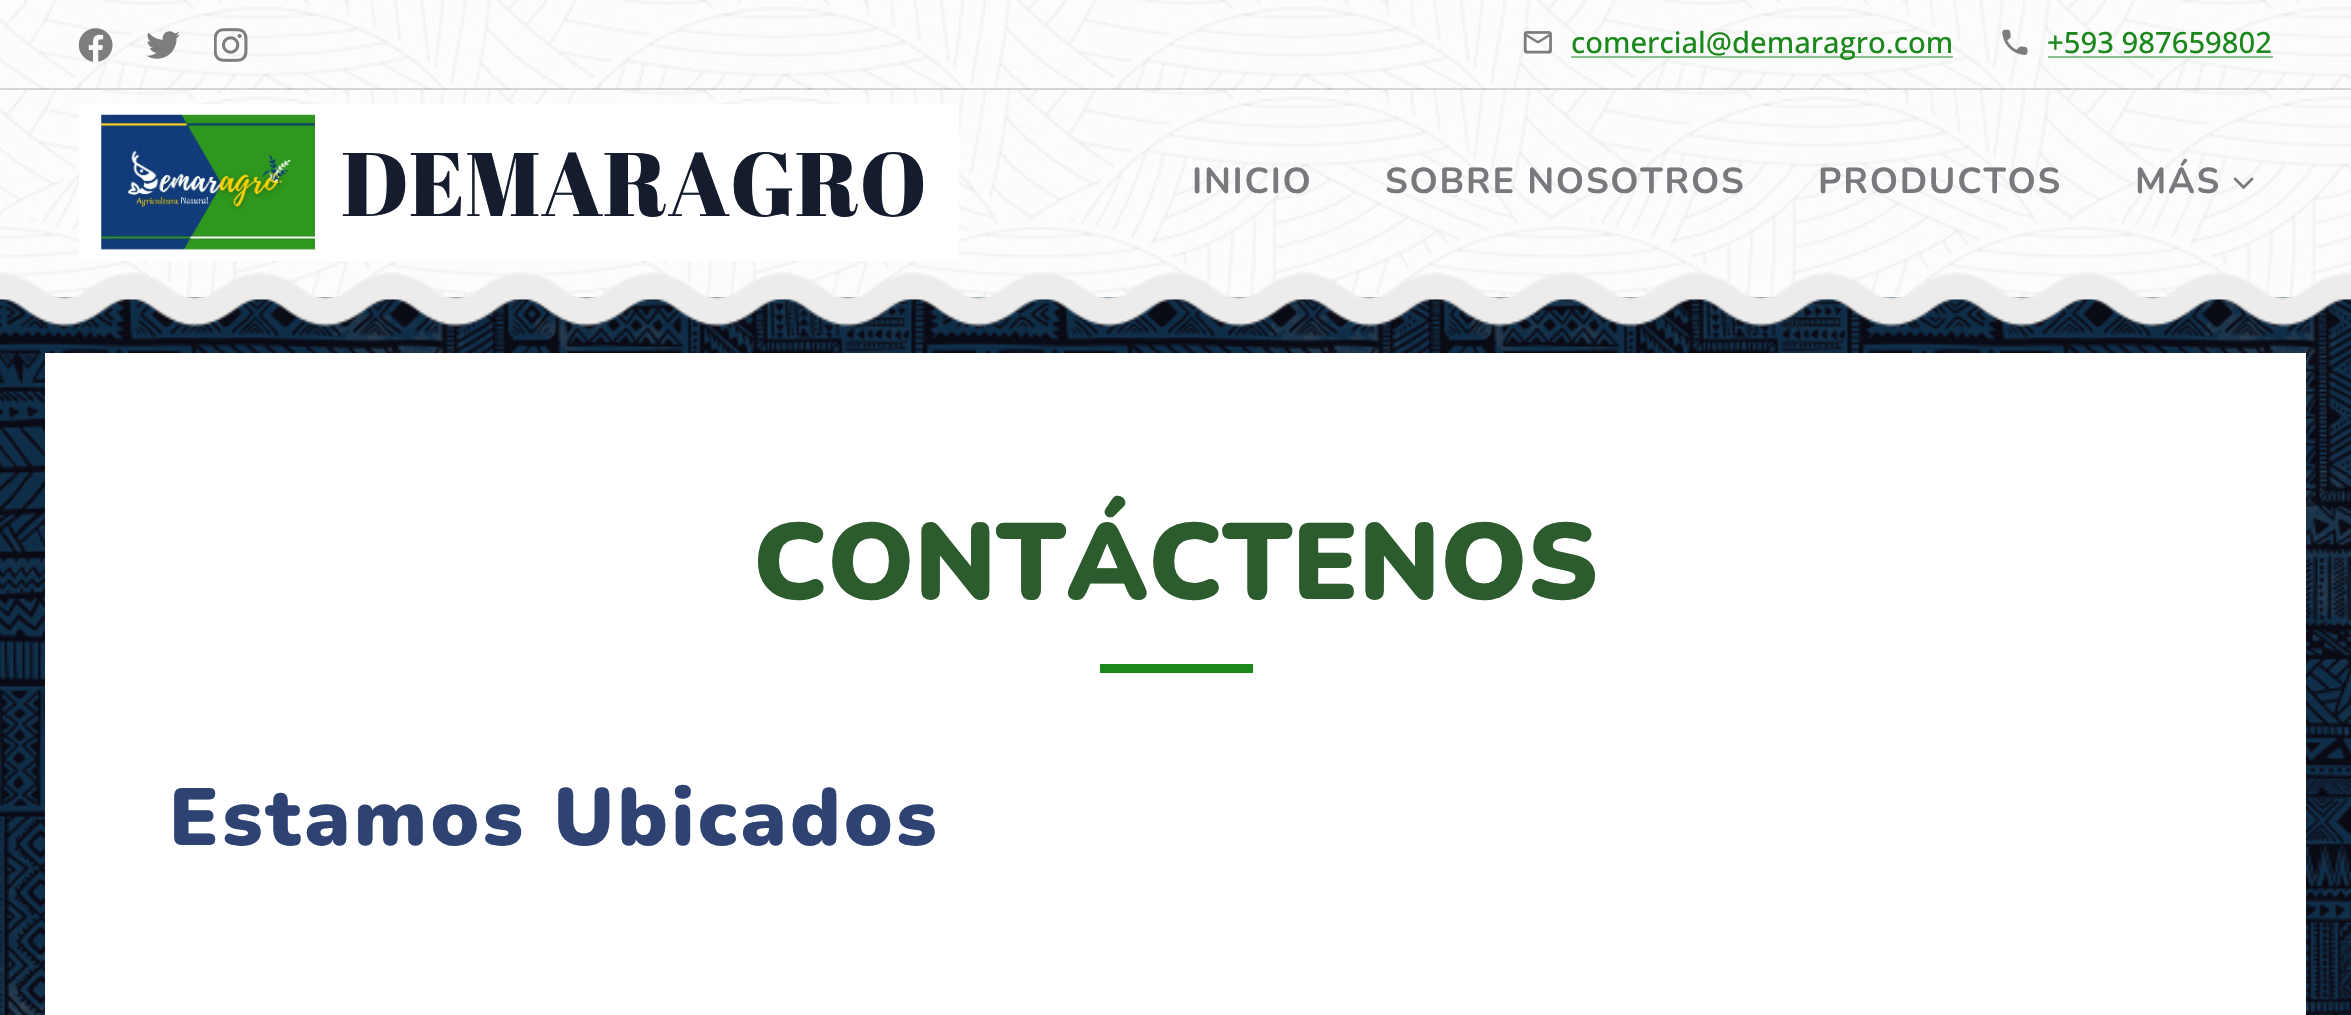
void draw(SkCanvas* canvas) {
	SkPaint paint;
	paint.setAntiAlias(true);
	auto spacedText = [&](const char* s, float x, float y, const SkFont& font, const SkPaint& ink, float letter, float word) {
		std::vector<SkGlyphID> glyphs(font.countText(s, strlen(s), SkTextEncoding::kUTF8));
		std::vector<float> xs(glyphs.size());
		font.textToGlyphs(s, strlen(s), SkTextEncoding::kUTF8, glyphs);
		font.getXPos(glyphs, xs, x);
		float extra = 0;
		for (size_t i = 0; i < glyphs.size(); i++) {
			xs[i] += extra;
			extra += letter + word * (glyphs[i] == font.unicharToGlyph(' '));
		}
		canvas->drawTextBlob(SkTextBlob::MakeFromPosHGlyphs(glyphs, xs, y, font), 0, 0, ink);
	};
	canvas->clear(0xffffffff);
	canvas->drawImageRect(SkImages::DeferredFromEncodedData(SkData::MakeFromFileName("img1.png")), SkRect::MakeXYWH(0, 0, 2351, 90), SkSamplingOptions());
	canvas->drawImageRect(SkImages::DeferredFromEncodedData(SkData::MakeFromFileName("img2.png")), SkRect::MakeXYWH(79, 28, 34, 34), SkSamplingOptions());
	canvas->drawImageRect(SkImages::DeferredFromEncodedData(SkData::MakeFromFileName("img3.png")), SkRect::MakeXYWH(146, 31, 34, 28), SkSamplingOptions());
	canvas->drawImageRect(SkImages::DeferredFromEncodedData(SkData::MakeFromFileName("img4.png")), SkRect::MakeXYWH(214, 28, 34, 34), SkSamplingOptions());
	canvas->drawImageRect(SkImages::DeferredFromEncodedData(SkData::MakeFromFileName("img5.png")), SkRect::MakeXYWH(1523, 31, 29, 23), SkSamplingOptions());
	paint.setColor(0x801a881a);
	canvas->drawRect(SkRect::MakeXYWH(1571, 56, 382, 2), paint);
	SkFont f1(fontMgr->matchFamilyStyle("Open Sans", SkFontStyle(500, SkFontStyle::kNormal_Width, SkFontStyle::kUpright_Slant)), 29.25);
	f1.setSubpixel(true);
	paint.setColor(0xff1a881a);
	canvas->drawString("comercial@demaragro.com", 1571, 53, f1, paint);
	canvas->drawImageRect(SkImages::DeferredFromEncodedData(SkData::MakeFromFileName("img6.png")), SkRect::MakeXYWH(2002, 29, 26, 26), SkSamplingOptions());
	canvas->drawString("+593 987659802", 2047, 53, f1, paint);
	paint.setColor(0x801a881a);
	canvas->drawRect(SkRect::MakeXYWH(2048, 56, 225, 2), paint);
	paint.setColor(0x26000000);
	canvas->drawRect(SkRect::MakeXYWH(0, 88, 2351, 2), paint);
	canvas->drawImageRect(SkImages::DeferredFromEncodedData(SkData::MakeFromFileName("img7.png")), SkRect::MakeXYWH(0, 90, 2351, 207), SkSamplingOptions());
	paint.setColor(0xffffffff);
	canvas->drawRect(SkRect::MakeXYWH(79, 104, 880, 157), paint);
	canvas->drawImageRect(SkImages::DeferredFromEncodedData(SkData::MakeFromFileName("img8.png")), SkRect::MakeXYWH(101, 114, 214, 136), SkSamplingOptions());
	SkFont f2(fontMgr->matchFamilyStyle("Abril Fatface", SkFontStyle::Normal()), 90);
	f2.setSubpixel(true);
	paint.setColor(0xff141c2d);
	canvas->drawString("DEMARAGRO", 341, 216, f2, paint);
	SkFont f3(fontMgr->matchFamilyStyle("Nunito", SkFontStyle::Bold()), 36);
	f3.setSubpixel(true);
	paint.setColor(0xff77797c);
	spacedText("INICIO", 1192, 193, f3, paint, 1.75, 0);
	spacedText("SOBRE NOSOTROS", 1385, 193, f3, paint, 1.75, 0);
	spacedText("PRODUCTOS", 1818, 193, f3, paint, 1.75, 0);
	spacedText("MÁS", 2135, 193, f3, paint, 1.75, 0);
	canvas->drawImageRect(SkImages::DeferredFromEncodedData(SkData::MakeFromFileName("img9.png")), SkRect::MakeXYWH(2233, 177, 21, 12), SkSamplingOptions());
	canvas->drawImageRect(SkImages::DeferredFromEncodedData(SkData::MakeFromFileName("img11.png")), SkRect::MakeXYWH(0, 297, 2351, 718), SkSamplingOptions());
	canvas->drawImageRect(SkImages::DeferredFromEncodedData(SkData::MakeFromFileName("img12.png")), SkRect::MakeXYWH(0, 297, 2351, 30), SkSamplingOptions());
	canvas->drawImageRect(SkImages::DeferredFromEncodedData(SkData::MakeFromFileName("img10.png")), SkRect::MakeXYWH(0, 272, 2351, 28), SkSamplingOptions());
	paint.setColor(0xffffffff);
	canvas->drawRect(SkRect::MakeXYWH(45, 353, 2261, 662), paint);
	SkFont f4(fontMgr->matchFamilyStyle("Nunito", SkFontStyle(900, SkFontStyle::kNormal_Width, SkFontStyle::kUpright_Slant)), 108);
	f4.setSubpixel(true);
	paint.setColor(0xff2c5b2d);
	canvas->drawString("CONTÁCTENOS", 753, 599, f4, paint);
	paint.setColor(0xff1a881a);
	canvas->drawRect(SkRect::MakeXYWH(1100, 664, 153, 9), paint);
	SkFont f5(fontMgr->matchFamilyStyle("Nunito", SkFontStyle(900, SkFontStyle::kNormal_Width, SkFontStyle::kUpright_Slant)), 81);
	f5.setSubpixel(true);
	paint.setColor(0xff2e4371);
	spacedText("Estamos Ubicados", 169, 845, f5, paint, 3.6, 0);
}
